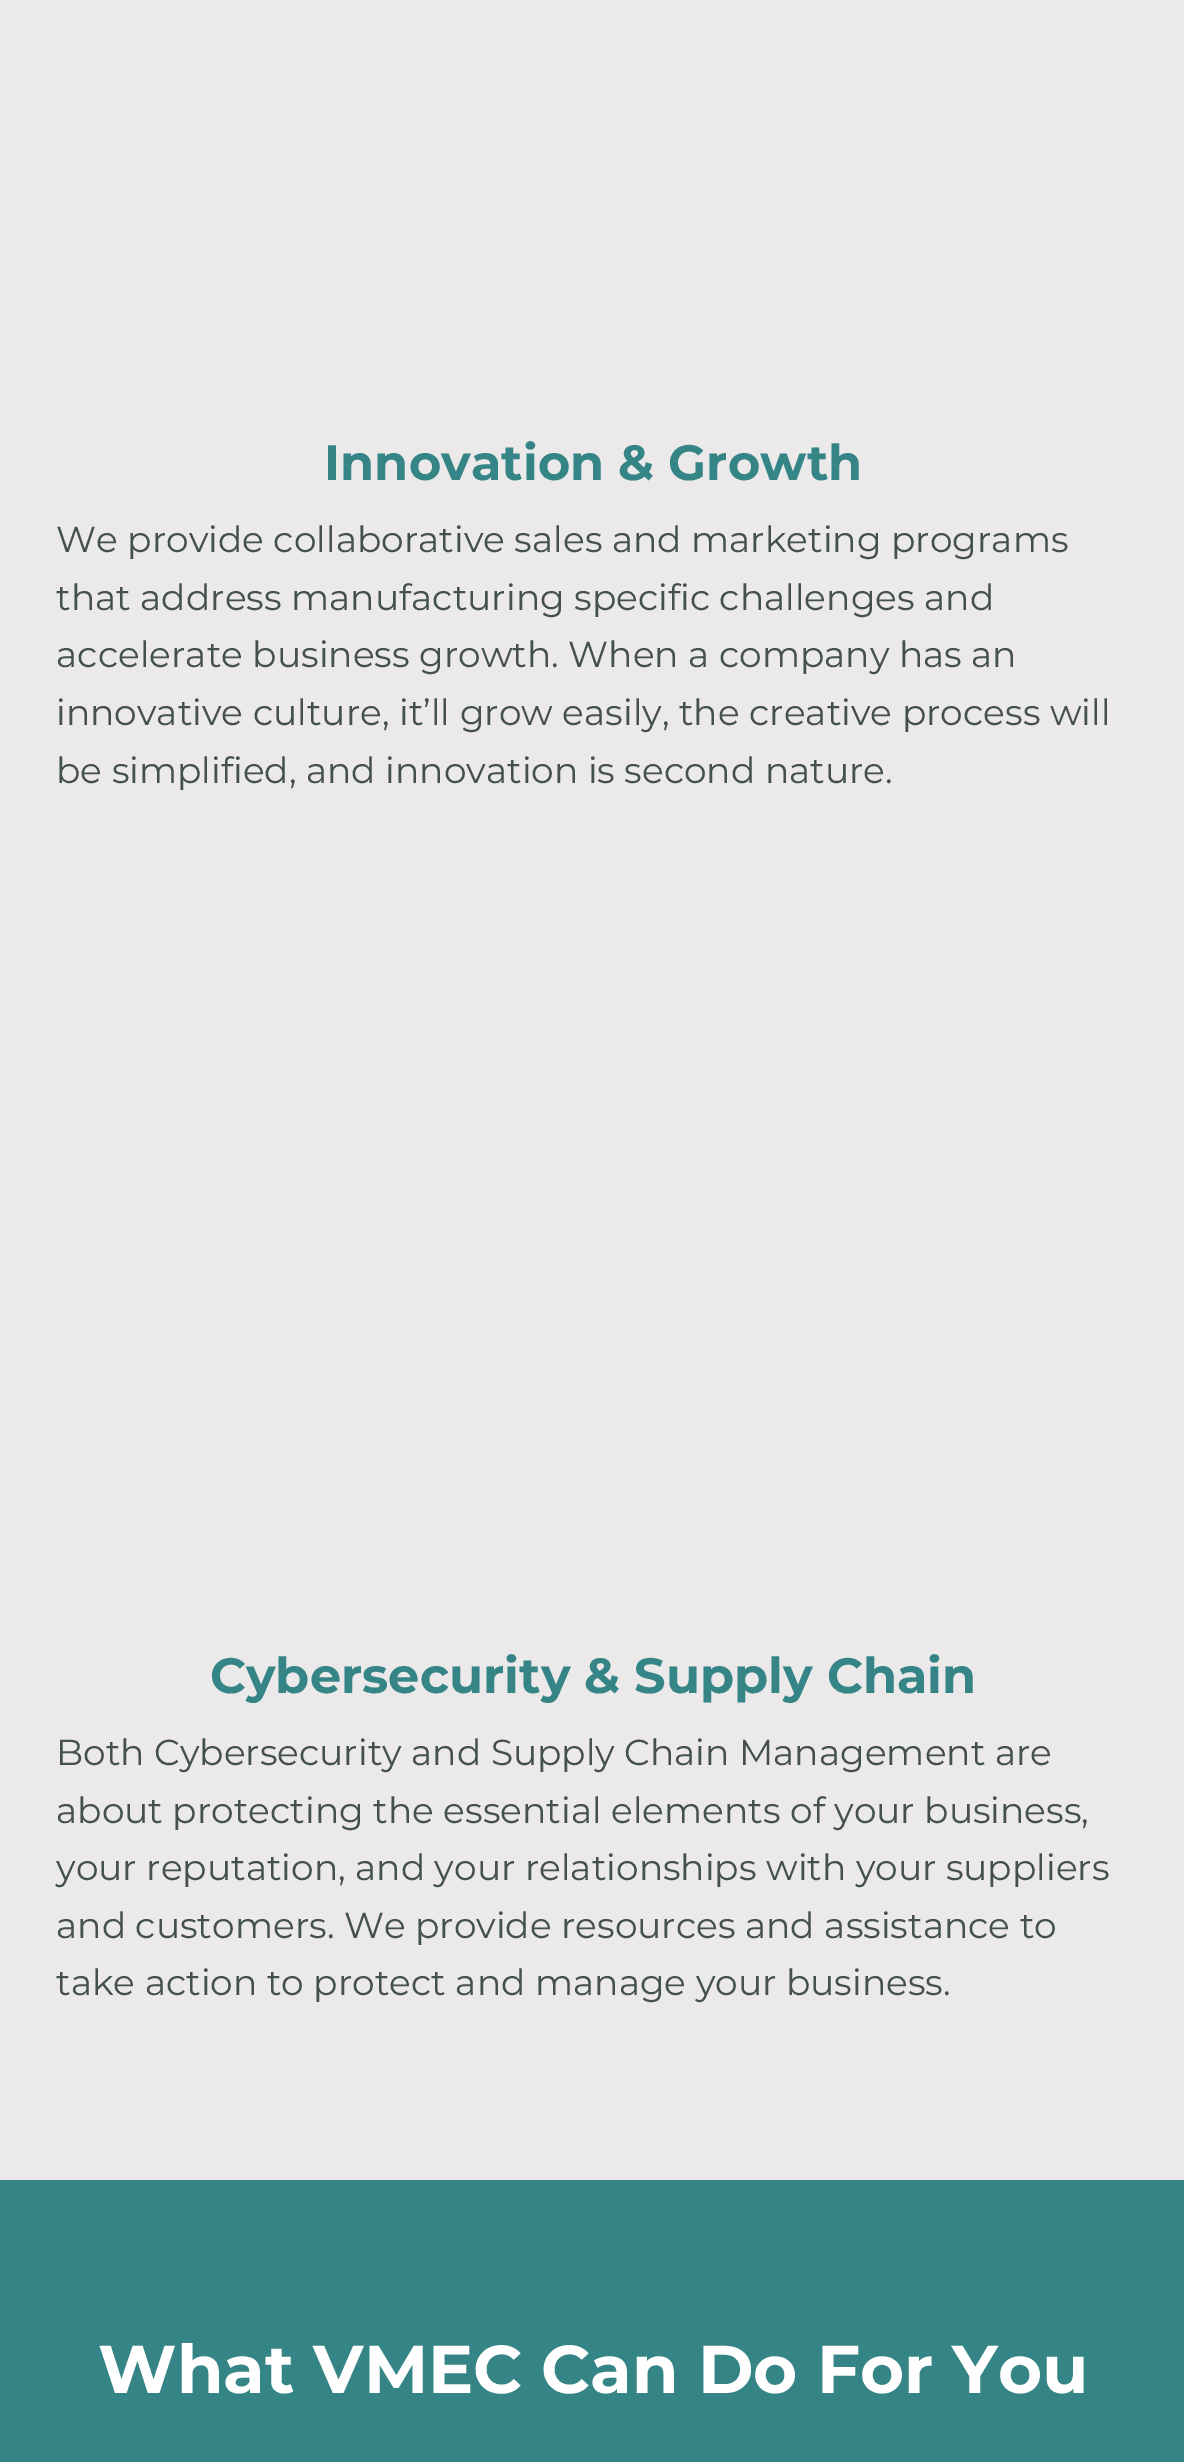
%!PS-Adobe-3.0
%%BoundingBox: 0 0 1184 2462
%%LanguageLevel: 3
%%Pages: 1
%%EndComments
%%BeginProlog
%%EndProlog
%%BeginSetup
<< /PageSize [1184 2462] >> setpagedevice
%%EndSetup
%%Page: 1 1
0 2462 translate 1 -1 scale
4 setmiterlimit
0.922 0.914 0.918 setrgbcolor
0 0 1184 2462 rectfill
0.208 0.522 0.529 setrgbcolor
0 2180 1184 282 rectfill
/Montserrat-Bold [49.5 0 0 -49.5 0 0] selectfont
324 480 moveto (Innovation & Growth) show
/Montserrat-Regular [36 0 0 -36 0 0] selectfont
0.267 0.314 0.294 setrgbcolor
56 552 moveto (We provide collaborative sales and marketing programs) show
56 610 moveto (that address manufacturing specific challenges and) show
56 667 moveto (accelerate business growth. When a company has an) show
56 725 moveto (innovative culture, it’ll grow easily, the creative process will) show
56 783 moveto (be simplified, and innovation is second nature.) show
/Montserrat-Bold [49.5 0 0 -49.5 0 0] selectfont
0.208 0.522 0.529 setrgbcolor
210 1693 moveto (Cybersecurity & Supply Chain) show
/Montserrat-Regular [36 0 0 -36 0 0] selectfont
0.267 0.314 0.294 setrgbcolor
56 1765 moveto (Both Cybersecurity and Supply Chain Management are) show
56 1823 moveto (about protecting the essential elements of your business,) show
56 1880 moveto (your reputation, and your relationships with your suppliers) show
56 1938 moveto (and customers. We provide resources and assistance to) show
56 1995 moveto (take action to protect and manage your business.) show
/Montserrat-Bold [67.5 0 0 -67.5 0 0] selectfont
1 setgray
98 2393 moveto (What VMEC Can Do For You) show
showpage
%%EOF
